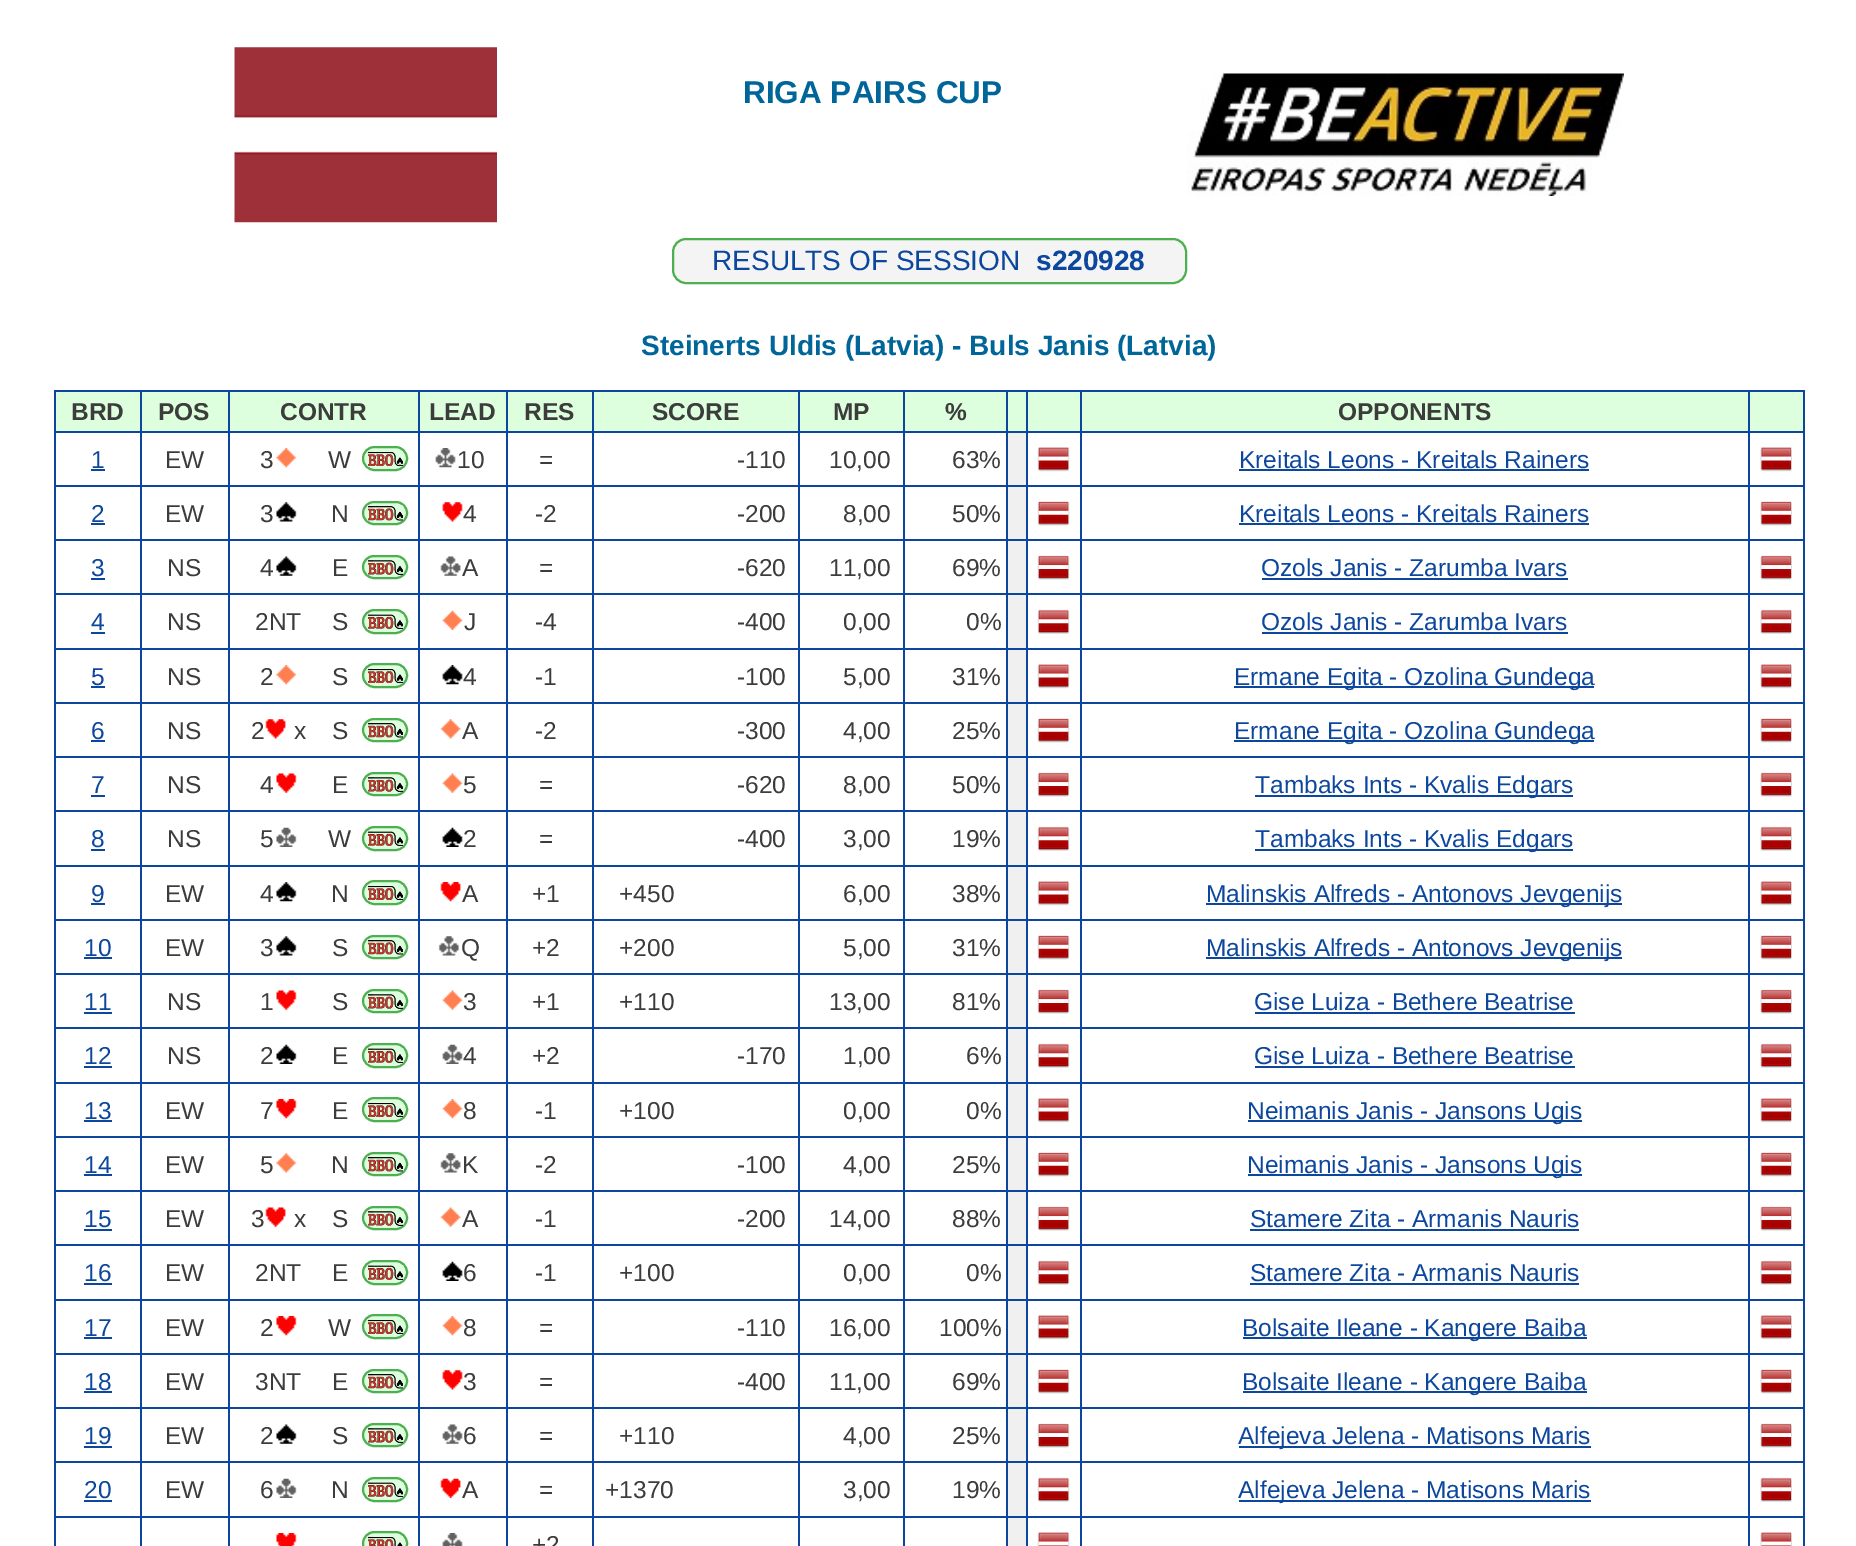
%!PS-Adobe-3.0
%%BoundingBox: 0 0 1856 1546
%%LanguageLevel: 3
%%Pages: 1
%%EndComments
%%BeginProlog
/rrect { 5 dict begin { /r /h /w /y /x } { exch def } forall
  x r add y moveto x w add y 2 copy h add r arct x w add y h add x 1 index r arct
  x y h add x y r arct x y 2 copy exch w add exch r arct closepath end } def
/drawimage { 5 dict begin { /h /w /y /x /name } { exch def } forall
  gsave x y translate w h scale
  w h 8 [w 0 0 h 0 0] name (r) file false 3 colorimage grestore end } def
%%EndProlog
%%BeginSetup
<< /PageSize [1856 1546] >> setpagedevice
%%EndSetup
%%Page: 1 1
0 1546 translate 1 -1 scale
4 setmiterlimit
1 setgray
0 0 1856 1546 rectfill
(images/1.raw) 234 47 263 176 drawimage
(images/2.raw) 1187 73 437 123 drawimage
0.957 setgray
673 239 513 44 13 rrect gsave fill grestore
0.298 0.686 0.314 setrgbcolor
2 setlinewidth
stroke
0.047 0.278 0.616 setrgbcolor
54 390 1750 2 rectfill
1803 390 2 1156 rectfill
54 390 2 1156 rectfill
0.867 1 0.867 setrgbcolor
56 392 84 39 rectfill
142 392 86 39 rectfill
0.047 0.278 0.616 setrgbcolor
1748 431 56 2 rectfill
1748 485 56 2 rectfill
1748 539 56 2 rectfill
1748 593 56 2 rectfill
1748 648 56 2 rectfill
1748 702 56 2 rectfill
1748 756 56 2 rectfill
1748 810 56 2 rectfill
1748 865 56 2 rectfill
1748 919 56 2 rectfill
1748 973 56 2 rectfill
1748 1027 56 2 rectfill
1748 1082 56 2 rectfill
1748 1136 56 2 rectfill
1748 1190 56 2 rectfill
1748 1244 56 2 rectfill
1748 1299 56 2 rectfill
1748 1353 56 2 rectfill
1748 1407 56 2 rectfill
1748 1461 56 2 rectfill
1748 1516 56 2 rectfill
1748 1516 2 30 rectfill
1080 1516 670 2 rectfill
1748 1461 2 56 rectfill
1080 1461 670 2 rectfill
1748 1407 2 56 rectfill
1080 1407 670 2 rectfill
1748 1353 2 56 rectfill
1080 1353 670 2 rectfill
1748 1299 2 56 rectfill
1080 1299 670 2 rectfill
1748 1244 2 56 rectfill
1080 1244 670 2 rectfill
1748 1190 2 56 rectfill
1080 1190 670 2 rectfill
1748 1136 2 56 rectfill
1080 1136 670 2 rectfill
1748 1082 2 56 rectfill
1080 1082 670 2 rectfill
1748 1027 2 56 rectfill
1080 1027 670 2 rectfill
1748 973 2 56 rectfill
1080 973 670 2 rectfill
1748 919 2 56 rectfill
1080 919 670 2 rectfill
1748 865 2 56 rectfill
1080 865 670 2 rectfill
1748 810 2 56 rectfill
1080 810 670 2 rectfill
1748 756 2 56 rectfill
1080 756 670 2 rectfill
1748 702 2 56 rectfill
1080 702 670 2 rectfill
1748 648 2 56 rectfill
1080 648 670 2 rectfill
1748 593 2 56 rectfill
1080 593 670 2 rectfill
1748 539 2 56 rectfill
1080 539 670 2 rectfill
1748 485 2 56 rectfill
1080 485 670 2 rectfill
1748 431 2 56 rectfill
1080 431 670 2 rectfill
1080 1516 2 30 rectfill
1026 1516 56 2 rectfill
1080 1461 2 56 rectfill
1026 1461 56 2 rectfill
1080 1407 2 56 rectfill
1026 1407 56 2 rectfill
1080 1353 2 56 rectfill
1026 1353 56 2 rectfill
1080 1299 2 56 rectfill
1026 1299 56 2 rectfill
1080 1244 2 56 rectfill
1026 1244 56 2 rectfill
1080 1190 2 56 rectfill
1026 1190 56 2 rectfill
1080 1136 2 56 rectfill
1026 1136 56 2 rectfill
1080 1082 2 56 rectfill
1026 1082 56 2 rectfill
1080 1027 2 56 rectfill
1026 1027 56 2 rectfill
1080 973 2 56 rectfill
1026 973 56 2 rectfill
1080 919 2 56 rectfill
1026 919 56 2 rectfill
1080 865 2 56 rectfill
1026 865 56 2 rectfill
1080 810 2 56 rectfill
1026 810 56 2 rectfill
1080 756 2 56 rectfill
1026 756 56 2 rectfill
1080 702 2 56 rectfill
1026 702 56 2 rectfill
1080 648 2 56 rectfill
1026 648 56 2 rectfill
1080 593 2 56 rectfill
1026 593 56 2 rectfill
1080 539 2 56 rectfill
1026 539 56 2 rectfill
1080 485 2 56 rectfill
1026 485 56 2 rectfill
1080 431 2 56 rectfill
1026 431 56 2 rectfill
1026 1516 2 30 rectfill
1006 1516 21 2 rectfill
1026 1461 2 56 rectfill
1006 1461 21 2 rectfill
1026 1407 2 56 rectfill
1006 1407 21 2 rectfill
1026 1353 2 56 rectfill
1006 1353 21 2 rectfill
1026 1299 2 56 rectfill
1006 1299 21 2 rectfill
1026 1244 2 56 rectfill
1006 1244 21 2 rectfill
1026 1190 2 56 rectfill
1006 1190 21 2 rectfill
1026 1136 2 56 rectfill
1006 1136 21 2 rectfill
1026 1082 2 56 rectfill
1006 1082 21 2 rectfill
1026 1027 2 56 rectfill
1006 1027 21 2 rectfill
1026 973 2 56 rectfill
1006 973 21 2 rectfill
1026 919 2 56 rectfill
1006 919 21 2 rectfill
1026 865 2 56 rectfill
1006 865 21 2 rectfill
1026 810 2 56 rectfill
1006 810 21 2 rectfill
1026 756 2 56 rectfill
1006 756 21 2 rectfill
1026 702 2 56 rectfill
1006 702 21 2 rectfill
1026 648 2 56 rectfill
1006 648 21 2 rectfill
1026 593 2 56 rectfill
1006 593 21 2 rectfill
1026 539 2 56 rectfill
1006 539 21 2 rectfill
1026 485 2 56 rectfill
1006 485 21 2 rectfill
1026 431 2 56 rectfill
1006 431 21 2 rectfill
1006 1516 2 30 rectfill
903 1516 105 2 rectfill
1006 1461 2 56 rectfill
903 1461 105 2 rectfill
1006 1407 2 56 rectfill
903 1407 105 2 rectfill
1006 1353 2 56 rectfill
903 1353 105 2 rectfill
1006 1299 2 56 rectfill
903 1299 105 2 rectfill
1006 1244 2 56 rectfill
903 1244 105 2 rectfill
1006 1190 2 56 rectfill
903 1190 105 2 rectfill
1006 1136 2 56 rectfill
903 1136 105 2 rectfill
1006 1082 2 56 rectfill
903 1082 105 2 rectfill
1006 1027 2 56 rectfill
903 1027 105 2 rectfill
1006 973 2 56 rectfill
903 973 105 2 rectfill
1006 919 2 56 rectfill
903 919 105 2 rectfill
1006 865 2 56 rectfill
903 865 105 2 rectfill
1006 810 2 56 rectfill
903 810 105 2 rectfill
1006 756 2 56 rectfill
903 756 105 2 rectfill
1006 702 2 56 rectfill
903 702 105 2 rectfill
1006 648 2 56 rectfill
903 648 105 2 rectfill
1006 593 2 56 rectfill
903 593 105 2 rectfill
1006 539 2 56 rectfill
903 539 105 2 rectfill
1006 485 2 56 rectfill
903 485 105 2 rectfill
1006 431 2 56 rectfill
903 431 105 2 rectfill
903 1516 2 30 rectfill
798 1516 107 2 rectfill
903 1461 2 56 rectfill
798 1461 107 2 rectfill
903 1407 2 56 rectfill
798 1407 107 2 rectfill
903 1353 2 56 rectfill
798 1353 107 2 rectfill
903 1299 2 56 rectfill
798 1299 107 2 rectfill
903 1244 2 56 rectfill
798 1244 107 2 rectfill
903 1190 2 56 rectfill
798 1190 107 2 rectfill
903 1136 2 56 rectfill
798 1136 107 2 rectfill
903 1082 2 56 rectfill
798 1082 107 2 rectfill
903 1027 2 56 rectfill
798 1027 107 2 rectfill
903 973 2 56 rectfill
798 973 107 2 rectfill
903 919 2 56 rectfill
798 919 107 2 rectfill
903 865 2 56 rectfill
798 865 107 2 rectfill
903 810 2 56 rectfill
798 810 107 2 rectfill
903 756 2 56 rectfill
798 756 107 2 rectfill
903 702 2 56 rectfill
798 702 107 2 rectfill
903 648 2 56 rectfill
798 648 107 2 rectfill
903 593 2 56 rectfill
798 593 107 2 rectfill
903 539 2 56 rectfill
798 539 107 2 rectfill
903 485 2 56 rectfill
798 485 107 2 rectfill
903 431 2 56 rectfill
798 431 107 2 rectfill
798 1516 2 30 rectfill
592 1516 208 2 rectfill
798 1461 2 56 rectfill
592 1461 208 2 rectfill
798 1407 2 56 rectfill
592 1407 208 2 rectfill
798 1353 2 56 rectfill
592 1353 208 2 rectfill
798 1299 2 56 rectfill
592 1299 208 2 rectfill
798 1244 2 56 rectfill
592 1244 208 2 rectfill
798 1190 2 56 rectfill
592 1190 208 2 rectfill
798 1136 2 56 rectfill
592 1136 208 2 rectfill
798 1082 2 56 rectfill
592 1082 208 2 rectfill
798 1027 2 56 rectfill
592 1027 208 2 rectfill
798 973 2 56 rectfill
592 973 208 2 rectfill
798 919 2 56 rectfill
592 919 208 2 rectfill
798 865 2 56 rectfill
592 865 208 2 rectfill
798 810 2 56 rectfill
592 810 208 2 rectfill
798 756 2 56 rectfill
592 756 208 2 rectfill
798 702 2 56 rectfill
592 702 208 2 rectfill
798 648 2 56 rectfill
592 648 208 2 rectfill
798 593 2 56 rectfill
592 593 208 2 rectfill
798 539 2 56 rectfill
592 539 208 2 rectfill
798 485 2 56 rectfill
592 485 208 2 rectfill
798 431 2 56 rectfill
592 431 208 2 rectfill
592 1516 2 30 rectfill
506 1516 87 2 rectfill
592 1461 2 56 rectfill
506 1461 87 2 rectfill
592 1407 2 56 rectfill
506 1407 87 2 rectfill
592 1353 2 56 rectfill
506 1353 87 2 rectfill
592 1299 2 56 rectfill
506 1299 87 2 rectfill
592 1244 2 56 rectfill
506 1244 87 2 rectfill
592 1190 2 56 rectfill
506 1190 87 2 rectfill
592 1136 2 56 rectfill
506 1136 87 2 rectfill
592 1082 2 56 rectfill
506 1082 87 2 rectfill
592 1027 2 56 rectfill
506 1027 87 2 rectfill
592 973 2 56 rectfill
506 973 87 2 rectfill
592 919 2 56 rectfill
506 919 87 2 rectfill
592 865 2 56 rectfill
506 865 87 2 rectfill
592 810 2 56 rectfill
506 810 87 2 rectfill
592 756 2 56 rectfill
506 756 87 2 rectfill
592 702 2 56 rectfill
506 702 87 2 rectfill
592 648 2 56 rectfill
506 648 87 2 rectfill
592 593 2 56 rectfill
506 593 87 2 rectfill
592 539 2 56 rectfill
506 539 87 2 rectfill
592 485 2 56 rectfill
506 485 87 2 rectfill
592 431 2 56 rectfill
506 431 87 2 rectfill
506 1516 2 30 rectfill
418 1516 90 2 rectfill
506 1461 2 56 rectfill
418 1461 90 2 rectfill
506 1407 2 56 rectfill
418 1407 90 2 rectfill
506 1353 2 56 rectfill
418 1353 90 2 rectfill
506 1299 2 56 rectfill
418 1299 90 2 rectfill
506 1244 2 56 rectfill
418 1244 90 2 rectfill
506 1190 2 56 rectfill
418 1190 90 2 rectfill
506 1136 2 56 rectfill
418 1136 90 2 rectfill
506 1082 2 56 rectfill
418 1082 90 2 rectfill
506 1027 2 56 rectfill
418 1027 90 2 rectfill
506 973 2 56 rectfill
418 973 90 2 rectfill
506 919 2 56 rectfill
418 919 90 2 rectfill
506 865 2 56 rectfill
418 865 90 2 rectfill
506 810 2 56 rectfill
418 810 90 2 rectfill
506 756 2 56 rectfill
418 756 90 2 rectfill
506 702 2 56 rectfill
418 702 90 2 rectfill
506 648 2 56 rectfill
418 648 90 2 rectfill
506 593 2 56 rectfill
418 593 90 2 rectfill
506 539 2 56 rectfill
418 539 90 2 rectfill
506 485 2 56 rectfill
418 485 90 2 rectfill
506 431 2 56 rectfill
418 431 90 2 rectfill
418 1516 2 30 rectfill
228 1516 192 2 rectfill
418 1461 2 56 rectfill
228 1461 192 2 rectfill
418 1407 2 56 rectfill
228 1407 192 2 rectfill
418 1353 2 56 rectfill
228 1353 192 2 rectfill
418 1299 2 56 rectfill
228 1299 192 2 rectfill
418 1244 2 56 rectfill
228 1244 192 2 rectfill
418 1190 2 56 rectfill
228 1190 192 2 rectfill
418 1136 2 56 rectfill
228 1136 192 2 rectfill
418 1082 2 56 rectfill
228 1082 192 2 rectfill
418 1027 2 56 rectfill
228 1027 192 2 rectfill
418 973 2 56 rectfill
228 973 192 2 rectfill
418 919 2 56 rectfill
228 919 192 2 rectfill
418 865 2 56 rectfill
228 865 192 2 rectfill
418 810 2 56 rectfill
228 810 192 2 rectfill
418 756 2 56 rectfill
228 756 192 2 rectfill
418 702 2 56 rectfill
228 702 192 2 rectfill
418 648 2 56 rectfill
228 648 192 2 rectfill
418 593 2 56 rectfill
228 593 192 2 rectfill
418 539 2 56 rectfill
228 539 192 2 rectfill
418 485 2 56 rectfill
228 485 192 2 rectfill
418 431 2 56 rectfill
228 431 192 2 rectfill
228 1516 2 30 rectfill
140 1516 89 2 rectfill
228 1461 2 56 rectfill
140 1461 89 2 rectfill
228 1407 2 56 rectfill
140 1407 89 2 rectfill
228 1353 2 56 rectfill
140 1353 89 2 rectfill
228 1299 2 56 rectfill
140 1299 89 2 rectfill
228 1244 2 56 rectfill
140 1244 89 2 rectfill
228 1190 2 56 rectfill
140 1190 89 2 rectfill
228 1136 2 56 rectfill
140 1136 89 2 rectfill
228 1082 2 56 rectfill
140 1082 89 2 rectfill
228 1027 2 56 rectfill
140 1027 89 2 rectfill
228 973 2 56 rectfill
140 973 89 2 rectfill
228 919 2 56 rectfill
140 919 89 2 rectfill
228 865 2 56 rectfill
140 865 89 2 rectfill
228 810 2 56 rectfill
140 810 89 2 rectfill
228 756 2 56 rectfill
140 756 89 2 rectfill
228 702 2 56 rectfill
140 702 89 2 rectfill
228 648 2 56 rectfill
140 648 89 2 rectfill
228 593 2 56 rectfill
140 593 89 2 rectfill
228 539 2 56 rectfill
140 539 89 2 rectfill
228 485 2 56 rectfill
140 485 89 2 rectfill
228 431 2 56 rectfill
140 431 89 2 rectfill
140 1516 2 30 rectfill
54 1516 88 2 rectfill
140 1461 2 56 rectfill
54 1461 88 2 rectfill
140 1407 2 56 rectfill
54 1407 88 2 rectfill
140 1353 2 56 rectfill
54 1353 88 2 rectfill
140 1299 2 56 rectfill
54 1299 88 2 rectfill
140 1244 2 56 rectfill
54 1244 88 2 rectfill
140 1190 2 56 rectfill
54 1190 88 2 rectfill
140 1136 2 56 rectfill
54 1136 88 2 rectfill
140 1082 2 56 rectfill
54 1082 88 2 rectfill
140 1027 2 56 rectfill
54 1027 88 2 rectfill
140 973 2 56 rectfill
54 973 88 2 rectfill
140 919 2 56 rectfill
54 919 88 2 rectfill
140 865 2 56 rectfill
54 865 88 2 rectfill
140 810 2 56 rectfill
54 810 88 2 rectfill
140 756 2 56 rectfill
54 756 88 2 rectfill
140 702 2 56 rectfill
54 702 88 2 rectfill
140 648 2 56 rectfill
54 648 88 2 rectfill
140 593 2 56 rectfill
54 593 88 2 rectfill
140 539 2 56 rectfill
54 539 88 2 rectfill
140 485 2 56 rectfill
54 485 88 2 rectfill
140 431 2 56 rectfill
54 431 88 2 rectfill
140 390 2 42 rectfill
0.867 1 0.867 setrgbcolor
230 392 188 39 rectfill
0.047 0.278 0.616 setrgbcolor
228 390 2 42 rectfill
0.867 1 0.867 setrgbcolor
420 392 86 39 rectfill
0.047 0.278 0.616 setrgbcolor
418 390 2 42 rectfill
0.867 1 0.867 setrgbcolor
508 392 84 39 rectfill
0.047 0.278 0.616 setrgbcolor
506 390 2 42 rectfill
0.867 1 0.867 setrgbcolor
594 392 204 39 rectfill
0.047 0.278 0.616 setrgbcolor
592 390 2 42 rectfill
0.867 1 0.867 setrgbcolor
800 392 103 39 rectfill
0.047 0.278 0.616 setrgbcolor
798 390 2 42 rectfill
0.867 1 0.867 setrgbcolor
905 392 101 39 rectfill
0.047 0.278 0.616 setrgbcolor
903 390 2 42 rectfill
0.867 1 0.867 setrgbcolor
1008 392 18 39 rectfill
0.047 0.278 0.616 setrgbcolor
1006 390 2 42 rectfill
0.867 1 0.867 setrgbcolor
1028 392 52 39 rectfill
0.047 0.278 0.616 setrgbcolor
1026 390 2 42 rectfill
0.867 1 0.867 setrgbcolor
1082 392 666 39 rectfill
0.047 0.278 0.616 setrgbcolor
1080 390 2 42 rectfill
0.867 1 0.867 setrgbcolor
1750 392 53 39 rectfill
0.047 0.278 0.616 setrgbcolor
1748 390 2 42 rectfill
91 469 14 2 rectfill
(images/3.raw) 276 448 21 20 drawimage
0.867 1 0.867 setrgbcolor
363 447 44 23 11.5 rrect gsave fill grestore
0.298 0.686 0.314 setrgbcolor
stroke
(images/4.raw) 367 451 36 16 drawimage
(images/5.raw) 435 448 21 20 drawimage
0.941 setgray
1008 433 18 52 rectfill
(images/6.raw) 1037 447 33 25 drawimage
0.047 0.278 0.616 setrgbcolor
1239 469 350 2 rectfill
(images/7.raw) 1760 447 32 25 drawimage
91 523 14 2 rectfill
(images/8.raw) 276 502 21 20 drawimage
0.867 1 0.867 setrgbcolor
363 502 44 22 11 rrect gsave fill grestore
0.298 0.686 0.314 setrgbcolor
stroke
(images/9.raw) 367 505 37 16 drawimage
(images/10.raw) 442 502 21 20 drawimage
0.941 setgray
1008 487 18 52 rectfill
(images/11.raw) 1037 501 33 25 drawimage
0.047 0.278 0.616 setrgbcolor
1239 523 350 2 rectfill
(images/12.raw) 1760 501 32 25 drawimage
91 578 14 2 rectfill
(images/13.raw) 276 556 21 20 drawimage
0.867 1 0.867 setrgbcolor
363 556 44 22 11 rrect gsave fill grestore
0.298 0.686 0.314 setrgbcolor
stroke
(images/14.raw) 367 560 37 15 drawimage
(images/15.raw) 440 556 21 20 drawimage
0.941 setgray
1008 541 18 52 rectfill
(images/16.raw) 1037 555 33 25 drawimage
0.047 0.278 0.616 setrgbcolor
1262 578 306 2 rectfill
(images/17.raw) 1760 555 32 25 drawimage
91 632 14 2 rectfill
0.867 1 0.867 setrgbcolor
363 610 44 23 11.5 rrect gsave fill grestore
0.298 0.686 0.314 setrgbcolor
stroke
(images/18.raw) 367 614 37 16 drawimage
(images/19.raw) 442 610 21 20 drawimage
0.941 setgray
1008 595 18 53 rectfill
(images/20.raw) 1037 609 33 25 drawimage
0.047 0.278 0.616 setrgbcolor
1262 632 306 2 rectfill
(images/21.raw) 1760 609 32 25 drawimage
91 686 14 2 rectfill
(images/3.raw) 276 665 21 20 drawimage
0.867 1 0.867 setrgbcolor
363 664 44 23 11.5 rrect gsave fill grestore
0.298 0.686 0.314 setrgbcolor
stroke
(images/4.raw) 367 668 36 16 drawimage
(images/22.raw) 442 665 21 20 drawimage
0.941 setgray
1008 650 18 52 rectfill
(images/6.raw) 1037 664 33 25 drawimage
0.047 0.278 0.616 setrgbcolor
1234 686 360 2 rectfill
(images/7.raw) 1760 664 32 25 drawimage
91 740 14 2 rectfill
(images/23.raw) 265 719 21 20 drawimage
0.867 1 0.867 setrgbcolor
363 719 44 22 11 rrect gsave fill grestore
0.298 0.686 0.314 setrgbcolor
stroke
(images/9.raw) 367 722 37 16 drawimage
(images/24.raw) 440 719 21 20 drawimage
0.941 setgray
1008 704 18 52 rectfill
(images/11.raw) 1037 718 33 25 drawimage
0.047 0.278 0.616 setrgbcolor
1234 740 360 2 rectfill
(images/12.raw) 1760 718 32 25 drawimage
91 795 14 2 rectfill
(images/25.raw) 276 773 21 20 drawimage
0.867 1 0.867 setrgbcolor
363 773 44 22 11 rrect gsave fill grestore
0.298 0.686 0.314 setrgbcolor
stroke
(images/14.raw) 367 777 37 15 drawimage
(images/26.raw) 442 773 21 20 drawimage
0.941 setgray
1008 758 18 52 rectfill
(images/16.raw) 1037 772 33 25 drawimage
0.047 0.278 0.616 setrgbcolor
1255 795 318 2 rectfill
(images/17.raw) 1760 772 32 25 drawimage
91 849 14 2 rectfill
(images/27.raw) 276 827 21 20 drawimage
0.867 1 0.867 setrgbcolor
363 827 44 23 11.5 rrect gsave fill grestore
0.298 0.686 0.314 setrgbcolor
stroke
(images/18.raw) 367 831 37 16 drawimage
(images/28.raw) 442 827 21 20 drawimage
0.941 setgray
1008 812 18 53 rectfill
(images/20.raw) 1037 826 33 25 drawimage
0.047 0.278 0.616 setrgbcolor
1255 849 318 2 rectfill
(images/21.raw) 1760 826 32 25 drawimage
91 903 14 2 rectfill
(images/29.raw) 276 882 21 20 drawimage
0.867 1 0.867 setrgbcolor
363 881 44 23 11.5 rrect gsave fill grestore
0.298 0.686 0.314 setrgbcolor
stroke
(images/4.raw) 367 885 36 16 drawimage
(images/30.raw) 440 882 21 20 drawimage
0.941 setgray
1008 867 18 52 rectfill
(images/6.raw) 1037 881 33 25 drawimage
0.047 0.278 0.616 setrgbcolor
1206 903 416 2 rectfill
(images/7.raw) 1760 881 32 25 drawimage
84 957 28 2 rectfill
(images/8.raw) 276 936 21 20 drawimage
0.867 1 0.867 setrgbcolor
363 936 44 22 11 rrect gsave fill grestore
0.298 0.686 0.314 setrgbcolor
stroke
(images/9.raw) 367 939 37 16 drawimage
(images/31.raw) 438 936 21 20 drawimage
0.941 setgray
1008 921 18 52 rectfill
(images/11.raw) 1037 935 33 25 drawimage
0.047 0.278 0.616 setrgbcolor
1206 957 416 2 rectfill
(images/12.raw) 1760 935 32 25 drawimage
84 1012 28 2 rectfill
(images/25.raw) 276 990 21 20 drawimage
0.867 1 0.867 setrgbcolor
363 990 44 22 11 rrect gsave fill grestore
0.298 0.686 0.314 setrgbcolor
stroke
(images/14.raw) 367 994 37 15 drawimage
(images/26.raw) 442 990 21 20 drawimage
0.941 setgray
1008 975 18 52 rectfill
(images/16.raw) 1037 989 33 25 drawimage
0.047 0.278 0.616 setrgbcolor
1255 1012 320 2 rectfill
(images/17.raw) 1760 989 32 25 drawimage
84 1066 28 2 rectfill
(images/32.raw) 276 1044 21 20 drawimage
0.867 1 0.867 setrgbcolor
363 1044 44 23 11.5 rrect gsave fill grestore
0.298 0.686 0.314 setrgbcolor
stroke
(images/18.raw) 367 1048 37 16 drawimage
(images/33.raw) 442 1044 21 20 drawimage
0.941 setgray
1008 1029 18 53 rectfill
(images/20.raw) 1037 1043 33 25 drawimage
0.047 0.278 0.616 setrgbcolor
1255 1066 320 2 rectfill
(images/21.raw) 1760 1043 32 25 drawimage
84 1120 28 2 rectfill
(images/34.raw) 276 1099 21 20 drawimage
0.867 1 0.867 setrgbcolor
363 1098 44 23 11.5 rrect gsave fill grestore
0.298 0.686 0.314 setrgbcolor
stroke
(images/4.raw) 367 1102 36 16 drawimage
(images/35.raw) 442 1099 21 20 drawimage
0.941 setgray
1008 1084 18 52 rectfill
(images/6.raw) 1037 1098 33 25 drawimage
0.047 0.278 0.616 setrgbcolor
1248 1120 334 2 rectfill
(images/7.raw) 1760 1098 32 25 drawimage
84 1174 28 2 rectfill
(images/36.raw) 276 1153 21 20 drawimage
0.867 1 0.867 setrgbcolor
363 1153 44 22 11 rrect gsave fill grestore
0.298 0.686 0.314 setrgbcolor
stroke
(images/9.raw) 367 1156 37 16 drawimage
(images/37.raw) 440 1153 21 20 drawimage
0.941 setgray
1008 1138 18 52 rectfill
(images/11.raw) 1037 1152 33 25 drawimage
0.047 0.278 0.616 setrgbcolor
1248 1174 334 2 rectfill
(images/12.raw) 1760 1152 32 25 drawimage
84 1229 28 2 rectfill
(images/38.raw) 265 1207 21 20 drawimage
0.867 1 0.867 setrgbcolor
363 1207 44 22 11 rrect gsave fill grestore
0.298 0.686 0.314 setrgbcolor
stroke
(images/14.raw) 367 1211 37 15 drawimage
(images/39.raw) 440 1207 21 20 drawimage
0.941 setgray
1008 1192 18 52 rectfill
(images/16.raw) 1037 1206 33 25 drawimage
0.047 0.278 0.616 setrgbcolor
1250 1229 329 2 rectfill
(images/17.raw) 1760 1206 32 25 drawimage
84 1283 28 2 rectfill
0.867 1 0.867 setrgbcolor
363 1261 44 23 11.5 rrect gsave fill grestore
0.298 0.686 0.314 setrgbcolor
stroke
(images/18.raw) 367 1265 37 16 drawimage
(images/28.raw) 442 1261 21 20 drawimage
0.941 setgray
1008 1246 18 53 rectfill
(images/20.raw) 1037 1260 33 25 drawimage
0.047 0.278 0.616 setrgbcolor
1250 1283 329 2 rectfill
(images/21.raw) 1760 1260 32 25 drawimage
84 1337 28 2 rectfill
(images/34.raw) 276 1316 21 20 drawimage
0.867 1 0.867 setrgbcolor
363 1315 44 23 11.5 rrect gsave fill grestore
0.298 0.686 0.314 setrgbcolor
stroke
(images/4.raw) 367 1319 36 16 drawimage
(images/35.raw) 442 1316 21 20 drawimage
0.941 setgray
1008 1301 18 52 rectfill
(images/6.raw) 1037 1315 33 25 drawimage
0.047 0.278 0.616 setrgbcolor
1243 1337 344 2 rectfill
(images/7.raw) 1760 1315 32 25 drawimage
84 1391 28 2 rectfill
0.867 1 0.867 setrgbcolor
363 1370 44 22 11 rrect gsave fill grestore
0.298 0.686 0.314 setrgbcolor
stroke
(images/9.raw) 367 1373 37 16 drawimage
(images/10.raw) 442 1370 21 20 drawimage
0.941 setgray
1008 1355 18 52 rectfill
(images/11.raw) 1037 1369 33 25 drawimage
0.047 0.278 0.616 setrgbcolor
1243 1391 344 2 rectfill
(images/12.raw) 1760 1369 32 25 drawimage
84 1446 28 2 rectfill
(images/13.raw) 276 1424 21 20 drawimage
0.867 1 0.867 setrgbcolor
363 1424 44 22 11 rrect gsave fill grestore
0.298 0.686 0.314 setrgbcolor
stroke
(images/14.raw) 367 1428 37 15 drawimage
(images/40.raw) 442 1424 21 20 drawimage
0.941 setgray
1008 1409 18 52 rectfill
(images/16.raw) 1037 1423 33 25 drawimage
0.047 0.278 0.616 setrgbcolor
1239 1446 352 2 rectfill
(images/17.raw) 1760 1423 32 25 drawimage
84 1500 28 2 rectfill
(images/27.raw) 276 1478 21 20 drawimage
0.867 1 0.867 setrgbcolor
363 1478 44 23 11.5 rrect gsave fill grestore
0.298 0.686 0.314 setrgbcolor
stroke
(images/18.raw) 367 1482 37 16 drawimage
(images/41.raw) 440 1478 21 20 drawimage
0.941 setgray
1008 1463 18 53 rectfill
(images/20.raw) 1037 1477 33 25 drawimage
0.047 0.278 0.616 setrgbcolor
1239 1500 352 2 rectfill
(images/21.raw) 1760 1477 32 25 drawimage
(images/42.raw) 276 1533 21 13 drawimage
0.867 1 0.867 setrgbcolor
363 1532 44 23 11.5 rrect gsave fill grestore
0.298 0.686 0.314 setrgbcolor
stroke
(images/43.raw) 367 1536 36 10 drawimage
(images/44.raw) 442 1533 21 13 drawimage
0.941 setgray
1008 1518 18 28 rectfill
(images/45.raw) 1037 1532 33 14 drawimage
(images/46.raw) 1760 1532 32 14 drawimage
/LiberationSans-Bold [31.5 0 0 -31.5 0 0] selectfont
0 0.4 0.6 setrgbcolor
743 103 moveto (RIGA PAIRS CUP) show
/LiberationSans-Regular [28 0 0 -28 0 0] selectfont
0.047 0.278 0.616 setrgbcolor
712 270 moveto (RESULTS OF SESSION) show
/LiberationSans-Bold [28 0 0 -28 0 0] selectfont
1036 270 moveto (s220928) show
0 0.4 0.6 setrgbcolor
641 355 moveto (Steinerts Uldis \(Latvia\) - Buls Janis \(Latvia\)) show
/LiberationSans-Bold [24.5 0 0 -24.5 0 0] selectfont
0.235 setgray
71 420 moveto (BRD) show
158 420 moveto (POS) show
280 420 moveto (CONTR) show
429 420 moveto (LEAD) show
524 420 moveto (RES) show
652 420 moveto (SCORE) show
833 420 moveto (MP) show
945 420 moveto (%) show
1338 420 moveto (OPPONENTS) show
/LiberationSans-Regular [24.5 0 0 -24.5 0 0] selectfont
0.047 0.278 0.616 setrgbcolor
91 468 moveto (1) show
0.235 setgray
165 468 moveto (EW) show
260 468 moveto (3) show
328 468 moveto (W) show
457 468 moveto (10) show
539 468 moveto (=) show
737 468 moveto (-110) show
829 468 moveto (10,00) show
952 468 moveto (63%) show
0.047 0.278 0.616 setrgbcolor
1239 468 moveto (Kreitals Leons - Kreitals Rainers) show
91 522 moveto (2) show
0.235 setgray
165 522 moveto (EW) show
260 522 moveto (3) show
331 522 moveto (N) show
463 522 moveto (4) show
535 522 moveto (-2) show
737 522 moveto (-200) show
843 522 moveto (8,00) show
952 522 moveto (50%) show
0.047 0.278 0.616 setrgbcolor
1239 522 moveto (Kreitals Leons - Kreitals Rainers) show
91 576 moveto (3) show
0.235 setgray
167 576 moveto (NS) show
260 576 moveto (4) show
332 576 moveto (E) show
462 576 moveto (A) show
539 576 moveto (=) show
737 576 moveto (-620) show
829 576 moveto (11,00) show
952 576 moveto (69%) show
0.047 0.278 0.616 setrgbcolor
1261 576 moveto (Ozols Janis - Zarumba Ivars) show
91 630 moveto (4) show
0.235 setgray
167 630 moveto (NS) show
255 630 moveto (2NT) show
332 630 moveto (S) show
464 630 moveto (J) show
535 630 moveto (-4) show
737 630 moveto (-400) show
843 630 moveto (0,00) show
966 630 moveto (0%) show
0.047 0.278 0.616 setrgbcolor
1261 630 moveto (Ozols Janis - Zarumba Ivars) show
91 685 moveto (5) show
0.235 setgray
167 685 moveto (NS) show
260 685 moveto (2) show
332 685 moveto (S) show
463 685 moveto (4) show
535 685 moveto (-1) show
737 685 moveto (-100) show
843 685 moveto (5,00) show
952 685 moveto (31%) show
0.047 0.278 0.616 setrgbcolor
1234 685 moveto (Ermane Egita - Ozolina Gundega) show
91 739 moveto (6) show
0.235 setgray
167 739 moveto (NS) show
251 739 moveto (2) show
294 739 moveto (x) show
332 739 moveto (S) show
462 739 moveto (A) show
535 739 moveto (-2) show
737 739 moveto (-300) show
843 739 moveto (4,00) show
952 739 moveto (25%) show
0.047 0.278 0.616 setrgbcolor
1234 739 moveto (Ermane Egita - Ozolina Gundega) show
91 793 moveto (7) show
0.235 setgray
167 793 moveto (NS) show
260 793 moveto (4) show
332 793 moveto (E) show
463 793 moveto (5) show
539 793 moveto (=) show
737 793 moveto (-620) show
843 793 moveto (8,00) show
952 793 moveto (50%) show
0.047 0.278 0.616 setrgbcolor
1255 793 moveto (Tambaks Ints - Kvalis Edgars) show
91 847 moveto (8) show
0.235 setgray
167 847 moveto (NS) show
260 847 moveto (5) show
328 847 moveto (W) show
463 847 moveto (2) show
539 847 moveto (=) show
737 847 moveto (-400) show
843 847 moveto (3,00) show
952 847 moveto (19%) show
0.047 0.278 0.616 setrgbcolor
1255 847 moveto (Tambaks Ints - Kvalis Edgars) show
91 902 moveto (9) show
0.235 setgray
165 902 moveto (EW) show
260 902 moveto (4) show
331 902 moveto (N) show
462 902 moveto (A) show
532 902 moveto (+1) show
619 902 moveto (+450) show
843 902 moveto (6,00) show
952 902 moveto (38%) show
0.047 0.278 0.616 setrgbcolor
1206 902 moveto (Malinskis Alfreds - Antonovs Jevgenijs) show
84 956 moveto (10) show
0.235 setgray
165 956 moveto (EW) show
260 956 moveto (3) show
332 956 moveto (S) show
461 956 moveto (Q) show
532 956 moveto (+2) show
619 956 moveto (+200) show
843 956 moveto (5,00) show
952 956 moveto (31%) show
0.047 0.278 0.616 setrgbcolor
1206 956 moveto (Malinskis Alfreds - Antonovs Jevgenijs) show
84 1010 moveto (11) show
0.235 setgray
167 1010 moveto (NS) show
260 1010 moveto (1) show
332 1010 moveto (S) show
463 1010 moveto (3) show
532 1010 moveto (+1) show
619 1010 moveto (+110) show
829 1010 moveto (13,00) show
952 1010 moveto (81%) show
0.047 0.278 0.616 setrgbcolor
1254 1010 moveto (Gise Luiza - Bethere Beatrise) show
84 1064 moveto (12) show
0.235 setgray
167 1064 moveto (NS) show
260 1064 moveto (2) show
332 1064 moveto (E) show
463 1064 moveto (4) show
532 1064 moveto (+2) show
737 1064 moveto (-170) show
843 1064 moveto (1,00) show
966 1064 moveto (6%) show
0.047 0.278 0.616 setrgbcolor
1254 1064 moveto (Gise Luiza - Bethere Beatrise) show
84 1119 moveto (13) show
0.235 setgray
165 1119 moveto (EW) show
260 1119 moveto (7) show
332 1119 moveto (E) show
463 1119 moveto (8) show
535 1119 moveto (-1) show
619 1119 moveto (+100) show
843 1119 moveto (0,00) show
966 1119 moveto (0%) show
0.047 0.278 0.616 setrgbcolor
1247 1119 moveto (Neimanis Janis - Jansons Ugis) show
84 1173 moveto (14) show
0.235 setgray
165 1173 moveto (EW) show
260 1173 moveto (5) show
331 1173 moveto (N) show
462 1173 moveto (K) show
535 1173 moveto (-2) show
737 1173 moveto (-100) show
843 1173 moveto (4,00) show
952 1173 moveto (25%) show
0.047 0.278 0.616 setrgbcolor
1247 1173 moveto (Neimanis Janis - Jansons Ugis) show
84 1227 moveto (15) show
0.235 setgray
165 1227 moveto (EW) show
251 1227 moveto (3) show
294 1227 moveto (x) show
332 1227 moveto (S) show
462 1227 moveto (A) show
535 1227 moveto (-1) show
737 1227 moveto (-200) show
829 1227 moveto (14,00) show
952 1227 moveto (88%) show
0.047 0.278 0.616 setrgbcolor
1250 1227 moveto (Stamere Zita - Armanis Nauris) show
84 1281 moveto (16) show
0.235 setgray
165 1281 moveto (EW) show
255 1281 moveto (2NT) show
332 1281 moveto (E) show
463 1281 moveto (6) show
535 1281 moveto (-1) show
619 1281 moveto (+100) show
843 1281 moveto (0,00) show
966 1281 moveto (0%) show
0.047 0.278 0.616 setrgbcolor
1250 1281 moveto (Stamere Zita - Armanis Nauris) show
84 1336 moveto (17) show
0.235 setgray
165 1336 moveto (EW) show
260 1336 moveto (2) show
328 1336 moveto (W) show
463 1336 moveto (8) show
539 1336 moveto (=) show
737 1336 moveto (-110) show
829 1336 moveto (16,00) show
939 1336 moveto (100%) show
0.047 0.278 0.616 setrgbcolor
1242 1336 moveto (Bolsaite Ileane - Kangere Baiba) show
84 1390 moveto (18) show
0.235 setgray
165 1390 moveto (EW) show
255 1390 moveto (3NT) show
332 1390 moveto (E) show
463 1390 moveto (3) show
539 1390 moveto (=) show
737 1390 moveto (-400) show
829 1390 moveto (11,00) show
952 1390 moveto (69%) show
0.047 0.278 0.616 setrgbcolor
1242 1390 moveto (Bolsaite Ileane - Kangere Baiba) show
84 1444 moveto (19) show
0.235 setgray
165 1444 moveto (EW) show
260 1444 moveto (2) show
332 1444 moveto (S) show
463 1444 moveto (6) show
539 1444 moveto (=) show
619 1444 moveto (+110) show
843 1444 moveto (4,00) show
952 1444 moveto (25%) show
0.047 0.278 0.616 setrgbcolor
1238 1444 moveto (Alfejeva Jelena - Matisons Maris) show
84 1498 moveto (20) show
0.235 setgray
165 1498 moveto (EW) show
260 1498 moveto (6) show
331 1498 moveto (N) show
462 1498 moveto (A) show
539 1498 moveto (=) show
605 1498 moveto (+1370) show
843 1498 moveto (3,00) show
952 1498 moveto (19%) show
0.047 0.278 0.616 setrgbcolor
1238 1498 moveto (Alfejeva Jelena - Matisons Maris) show
0.235 setgray
532 1553 moveto (+2) show
showpage
%%EOF
